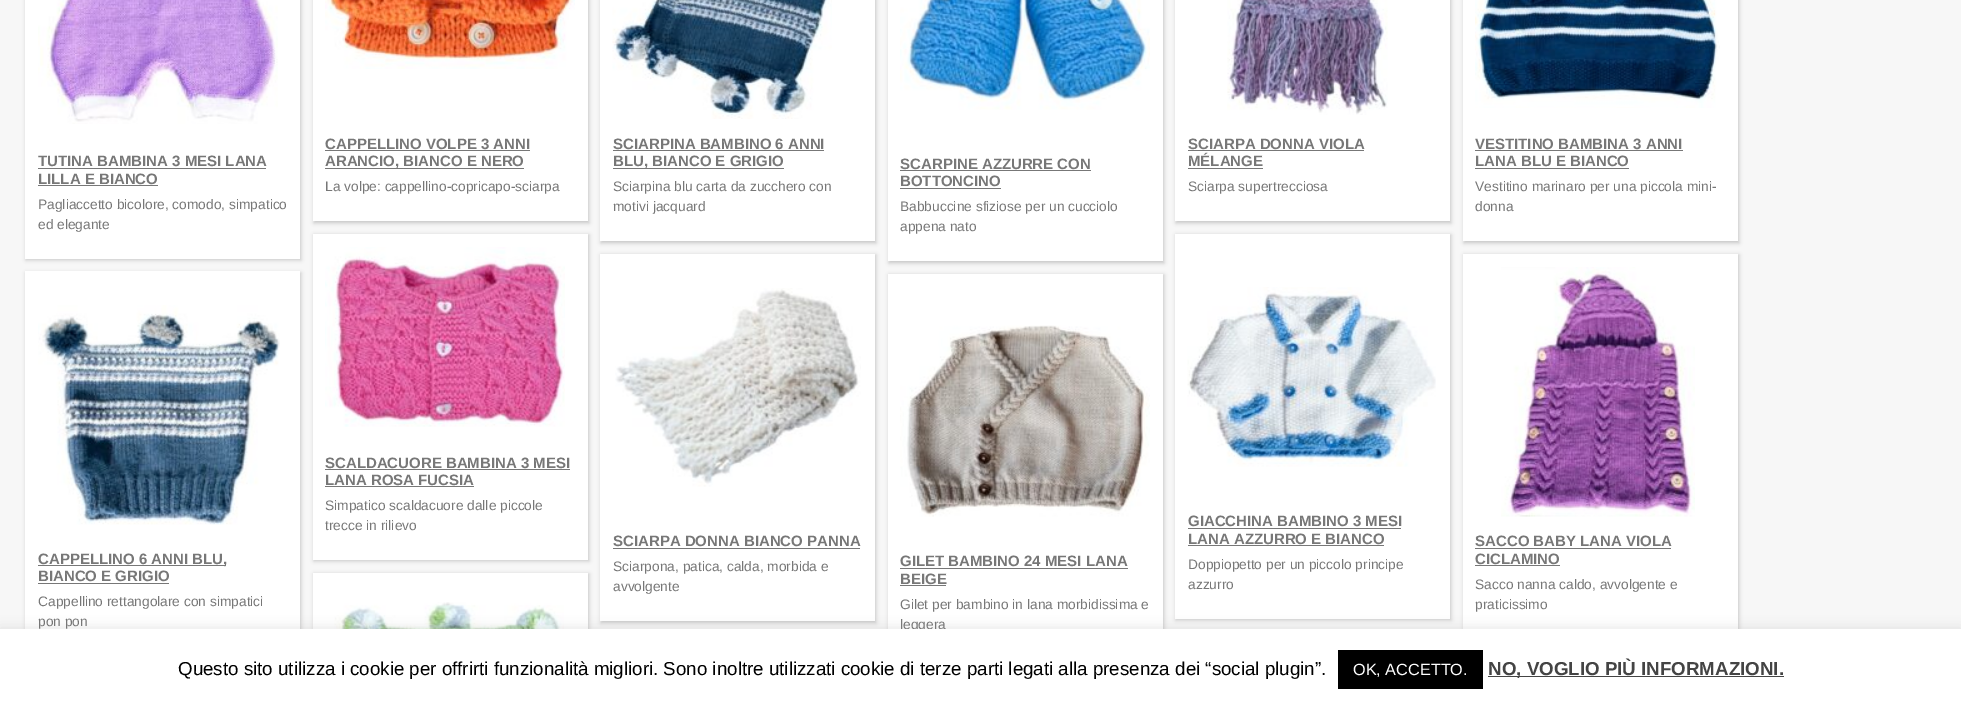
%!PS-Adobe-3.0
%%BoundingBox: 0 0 1961 703
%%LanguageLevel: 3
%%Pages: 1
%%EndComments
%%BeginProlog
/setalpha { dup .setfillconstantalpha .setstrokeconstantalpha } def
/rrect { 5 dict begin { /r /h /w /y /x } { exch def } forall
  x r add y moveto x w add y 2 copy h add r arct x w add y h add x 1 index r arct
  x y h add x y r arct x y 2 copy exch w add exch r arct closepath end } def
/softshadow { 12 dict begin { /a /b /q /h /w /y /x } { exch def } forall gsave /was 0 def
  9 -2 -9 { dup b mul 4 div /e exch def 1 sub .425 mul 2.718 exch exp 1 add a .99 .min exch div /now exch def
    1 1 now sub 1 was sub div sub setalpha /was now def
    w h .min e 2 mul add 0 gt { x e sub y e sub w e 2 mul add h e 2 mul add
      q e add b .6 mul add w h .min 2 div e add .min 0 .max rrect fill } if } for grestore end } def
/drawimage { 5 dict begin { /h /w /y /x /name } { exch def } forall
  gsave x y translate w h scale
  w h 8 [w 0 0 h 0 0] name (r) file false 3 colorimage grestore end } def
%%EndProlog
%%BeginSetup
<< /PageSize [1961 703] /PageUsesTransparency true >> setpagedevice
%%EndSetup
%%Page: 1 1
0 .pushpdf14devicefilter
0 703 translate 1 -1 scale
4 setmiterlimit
0.969 setgray
0 0 1961 703 rectfill
0 setgray
26 -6 275 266 0 2 0.2 softshadow
1 setgray
25 0 275 259 rectfill
(images/1.raw) 38 0 240 124 drawimage
0.467 setgray
38 168 228 1 rectfill
38 185 120 1 rectfill
0 setgray
314 -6 275 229 0 2 0.2 softshadow
1 setgray
313 0 275 221 rectfill
(images/2.raw) 325 0 250 69 drawimage
0.467 setgray
325 150 205 1 rectfill
325 168 199 1 rectfill
0 setgray
601 -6 275 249 0 2 0.2 softshadow
1 setgray
600 0 275 241 rectfill
(images/3.raw) 612 0 220 119 drawimage
0.467 setgray
613 150 211 1 rectfill
613 168 171 1 rectfill
0 setgray
889 -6 275 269 0 2 0.2 softshadow
1 setgray
888 0 275 261 rectfill
(images/4.raw) 900 0 250 110 drawimage
0.467 setgray
900 170 191 1 rectfill
900 188 101 1 rectfill
0 setgray
1176 -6 275 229 0 2 0.2 softshadow
1 setgray
1175 0 275 221 rectfill
(images/5.raw) 1227 0 161 115 drawimage
0.467 setgray
1188 150 176 1 rectfill
1188 168 75 1 rectfill
0 setgray
1464 -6 275 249 0 2 0.2 softshadow
1 setgray
1463 0 275 241 rectfill
(images/6.raw) 1475 0 245 108 drawimage
0.467 setgray
1475 150 208 1 rectfill
1475 168 154 1 rectfill
0 setgray
314 235 275 326 0 2 0.2 softshadow
1 setgray
313 234 275 326 rectfill
(images/7.raw) 325 247 240 180 drawimage
0.467 setgray
325 469 245 1 rectfill
325 486 149 1 rectfill
0 setgray
26 273 275 385 0 2 0.2 softshadow
1 setgray
25 271 275 358 rectfill
(images/8.raw) 38 305 242 220 drawimage
0.467 setgray
38 565 188 1 rectfill
38 583 131 1 rectfill
0 setgray
314 574 275 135 0 2 0.2 softshadow
1 setgray
313 573 275 56 rectfill
(images/9.raw) 334 602 230 27 drawimage
0 setgray
601 255 275 368 0 2 0.2 softshadow
1 setgray
600 254 275 367 rectfill
(images/10.raw) 615 288 246 199 drawimage
0.467 setgray
613 548 247 1 rectfill
0 setgray
889 275 275 385 0 2 0.2 softshadow
1 setgray
888 274 275 355 rectfill
(images/11.raw) 900 325 250 192 drawimage
0.467 setgray
900 568 228 1 rectfill
900 585 46 1 rectfill
0 setgray
1176 235 275 385 0 2 0.2 softshadow
1 setgray
1175 234 275 385 rectfill
(images/12.raw) 1187 287 249 180 drawimage
0.467 setgray
1188 528 213 1 rectfill
1188 545 196 1 rectfill
0 setgray
1464 255 275 385 0 2 0.2 softshadow
1 setgray
1463 254 275 375 rectfill
(images/13.raw) 1501 267 194 250 drawimage
0.467 setgray
1475 548 196 1 rectfill
1475 565 85 1 rectfill
0.675 0.671 0.671 setrgbcolor
0 628 1961 75 0 6 0.3 softshadow
/LiberationSans-Bold [15 0 0 -15 0 0] selectfont
0.467 setgray
38 166 moveto (TUTINA BAMBINA 3 MESI LANA) show
38 184 moveto (LILLA E BIANCO) show
/LiberationSans-Regular [13.75 0 0 -13.75 0 0] selectfont
38 209 moveto (Pagliaccetto bicolore, comodo, simpatico) show
38 229 moveto (ed elegante) show
/LiberationSans-Bold [15 0 0 -15 0 0] selectfont
325 149 moveto (CAPPELLINO VOLPE 3 ANNI) show
325 166 moveto (ARANCIO, BIANCO E NERO) show
/LiberationSans-Regular [13.75 0 0 -13.75 0 0] selectfont
325 191 moveto (La volpe: cappellino-copricapo-sciarpa) show
/LiberationSans-Bold [15 0 0 -15 0 0] selectfont
613 149 moveto (SCIARPINA BAMBINO 6 ANNI) show
613 166 moveto (BLU, BIANCO E GRIGIO) show
/LiberationSans-Regular [13.75 0 0 -13.75 0 0] selectfont
613 191 moveto (Sciarpina blu carta da zucchero con) show
613 211 moveto (motivi jacquard) show
/LiberationSans-Bold [15 0 0 -15 0 0] selectfont
900 169 moveto (SCARPINE AZZURRE CON) show
900 186 moveto (BOTTONCINO) show
/LiberationSans-Regular [13.75 0 0 -13.75 0 0] selectfont
900 211 moveto (Babbuccine sfiziose per un cucciolo) show
900 231 moveto (appena nato) show
/LiberationSans-Bold [15 0 0 -15 0 0] selectfont
1188 149 moveto (SCIARPA DONNA VIOLA) show
1188 166 moveto (MÉLANGE) show
/LiberationSans-Regular [13.75 0 0 -13.75 0 0] selectfont
1188 191 moveto (Sciarpa supertrecciosa) show
/LiberationSans-Bold [15 0 0 -15 0 0] selectfont
1475 149 moveto (VESTITINO BAMBINA 3 ANNI) show
1475 166 moveto (LANA BLU E BIANCO) show
/LiberationSans-Regular [13.75 0 0 -13.75 0 0] selectfont
1475 191 moveto (Vestitino marinaro per una piccola mini-) show
1475 211 moveto (donna) show
/LiberationSans-Bold [15 0 0 -15 0 0] selectfont
325 468 moveto (SCALDACUORE BAMBINA 3 MESI) show
325 485 moveto (LANA ROSA FUCSIA) show
/LiberationSans-Regular [13.75 0 0 -13.75 0 0] selectfont
325 510 moveto (Simpatico scaldacuore dalle piccole) show
325 530 moveto (trecce in rilievo) show
/LiberationSans-Bold [15 0 0 -15 0 0] selectfont
38 564 moveto (CAPPELLINO 6 ANNI BLU,) show
38 581 moveto (BIANCO E GRIGIO) show
/LiberationSans-Regular [13.75 0 0 -13.75 0 0] selectfont
38 606 moveto (Cappellino rettangolare con simpatici) show
38 626 moveto (pon pon) show
/LiberationSans-Bold [15 0 0 -15 0 0] selectfont
613 546 moveto (SCIARPA DONNA BIANCO PANNA) show
/LiberationSans-Regular [13.75 0 0 -13.75 0 0] selectfont
613 571 moveto (Sciarpona, patica, calda, morbida e) show
613 591 moveto (avvolgente) show
/LiberationSans-Bold [15 0 0 -15 0 0] selectfont
900 566 moveto (GILET BAMBINO 24 MESI LANA) show
900 584 moveto (BEIGE) show
/LiberationSans-Regular [13.75 0 0 -13.75 0 0] selectfont
900 609 moveto (Gilet per bambino in lana morbidissima e) show
900 629 moveto (leggera) show
/LiberationSans-Bold [15 0 0 -15 0 0] selectfont
1188 526 moveto (GIACCHINA BAMBINO 3 MESI) show
1188 544 moveto (LANA AZZURRO E BIANCO) show
/LiberationSans-Regular [13.75 0 0 -13.75 0 0] selectfont
1188 569 moveto (Doppiopetto per un piccolo principe) show
1188 589 moveto (azzurro) show
/LiberationSans-Bold [15 0 0 -15 0 0] selectfont
1475 546 moveto (SACCO BABY LANA VIOLA) show
1475 564 moveto (CICLAMINO) show
/LiberationSans-Regular [13.75 0 0 -13.75 0 0] selectfont
1475 589 moveto (Sacco nanna caldo, avvolgente e) show
1475 609 moveto (praticissimo) show
1 setgray
0 629 1961 74 rectfill
/LiberationSans-Regular [18.75 0 0 -18.75 0 0] selectfont
0 setgray
178 675 moveto (Questo sito utilizza i cookie per offrirti funzionalità migliori. Sono inoltre utilizzati cookie di terze parti legati alla presenza dei “social plugin”.) show
1338 650 145 39 rectfill
/LiberationSans-Regular [16.25 0 0 -16.25 0 0] selectfont
1 setgray
1353 675 moveto (OK, ACCETTO.) show
0.267 setgray
1488 676 296 1 rectfill
/LiberationSans-Bold [18.75 0 0 -18.75 0 0] selectfont
1488 675 moveto (NO, VOGLIO PIÙ INFORMAZIONI.) show
.poppdf14devicefilter showpage
%%EOF
